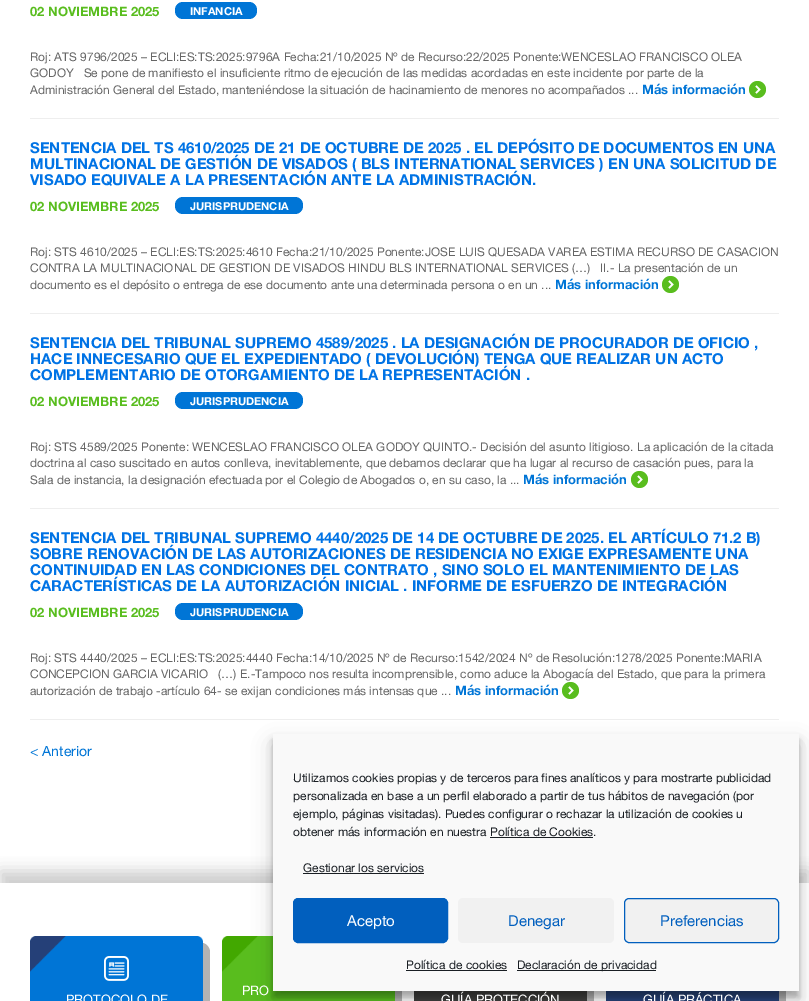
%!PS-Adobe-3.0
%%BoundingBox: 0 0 809 1001
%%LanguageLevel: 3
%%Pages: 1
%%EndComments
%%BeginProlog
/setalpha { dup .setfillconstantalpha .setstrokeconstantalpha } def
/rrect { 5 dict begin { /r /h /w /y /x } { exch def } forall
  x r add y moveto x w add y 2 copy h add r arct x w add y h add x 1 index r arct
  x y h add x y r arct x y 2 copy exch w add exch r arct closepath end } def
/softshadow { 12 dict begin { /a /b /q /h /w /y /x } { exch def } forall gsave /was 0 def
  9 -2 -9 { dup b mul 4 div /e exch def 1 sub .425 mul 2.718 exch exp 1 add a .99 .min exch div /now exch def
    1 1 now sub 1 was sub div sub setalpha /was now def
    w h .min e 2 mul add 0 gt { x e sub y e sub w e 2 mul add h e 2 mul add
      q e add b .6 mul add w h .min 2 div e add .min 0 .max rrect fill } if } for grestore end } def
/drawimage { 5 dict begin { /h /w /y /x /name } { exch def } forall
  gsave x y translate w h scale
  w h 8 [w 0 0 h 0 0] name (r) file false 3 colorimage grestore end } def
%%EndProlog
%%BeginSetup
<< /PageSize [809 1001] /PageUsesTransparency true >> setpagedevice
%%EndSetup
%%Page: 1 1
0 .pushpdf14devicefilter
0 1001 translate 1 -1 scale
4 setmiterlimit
1 setgray
0 0 809 1001 rectfill
0 0.459 0.839 setrgbcolor
175 2 82 17 8 rrect fill
0.349 0.741 0.118 setrgbcolor
newpath 757.5 89.5 8.5 0 360 arc closepath fill
1 setgray
1.5 setlinewidth
newpath 756 86 moveto 759.5 89.5 lineto 756 93 lineto stroke
0.933 setgray
30 118 749 1 rectfill
0 0.459 0.839 setrgbcolor
175 197 128 17 8 rrect fill
0.349 0.741 0.118 setrgbcolor
newpath 670.5 284.5 8.5 0 360 arc closepath fill
1 setgray
newpath 669 281 moveto 672.5 284.5 lineto 669 288 lineto stroke
0.933 setgray
30 313 749 1 rectfill
0 0.459 0.839 setrgbcolor
175 392 128 17 8 rrect fill
0.349 0.741 0.118 setrgbcolor
newpath 639.5 479.5 8.5 0 360 arc closepath fill
1 setgray
newpath 638 476 moveto 641.5 479.5 lineto 638 483 lineto stroke
0.933 setgray
30 508 749 1 rectfill
0 0.459 0.839 setrgbcolor
175 603 128 17 8 rrect fill
0.349 0.741 0.118 setrgbcolor
newpath 570.5 690.5 8.5 0 360 arc closepath fill
1 setgray
newpath 569 687 moveto 572.5 690.5 lineto 569 694 lineto stroke
0.933 setgray
30 719 749 1 rectfill
gsave
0 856 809 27 rectclip
0.8 setgray
0 871 809 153 0 7.5 1 softshadow
grestore
0.702 setgray
newpath 37 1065 moveto 38 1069 42 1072 46 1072 curveto 201 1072 lineto 206 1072 210 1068 210 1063 curveto 210 952 lineto 210 948 207 944 203 943 curveto 203 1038 lineto 203 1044 207 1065 194 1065 curveto closepath fill
(images/1.raw) 30 936 173 65 drawimage
(images/2.raw) 104 956 25 25 drawimage
newpath 229 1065 moveto 230 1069 234 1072 238 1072 curveto 393 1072 lineto 398 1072 402 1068 402 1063 curveto 402 952 lineto 402 948 399 944 395 943 curveto 395 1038 lineto 395 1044 399 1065 386 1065 curveto closepath fill
(images/3.raw) 222 936 173 65 drawimage
newpath 421 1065 moveto 422 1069 426 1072 430 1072 curveto 585 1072 lineto 590 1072 594 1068 594 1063 curveto 594 952 lineto 594 948 591 944 587 943 curveto 587 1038 lineto 587 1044 591 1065 578 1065 curveto closepath fill
(images/4.raw) 414 991 173 10 drawimage
newpath 613 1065 moveto 614 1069 618 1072 622 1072 curveto 777 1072 lineto 782 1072 786 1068 786 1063 curveto 786 952 lineto 786 948 783 944 779 943 curveto 779 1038 lineto 779 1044 783 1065 770 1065 curveto closepath fill
(images/5.raw) 606 991 173 10 drawimage
0 setgray
273 740 526 257 0 3 0.23 softshadow
273 744 526 257 0 10 0.19 softshadow
0.976 setgray
273 734 526 257 rectfill
0.098 0.118 0.137 setrgbcolor
490 837 103 1 rectfill
303 873 121 1 rectfill
0.004 0.373 0.745 setrgbcolor
293.5 898.5 154 44 4.5 rrect gsave fill grestore
1 setlinewidth
stroke
0.945 setgray
458 898 156 45 5 rrect fill
624.5 898.5 154 44 4.5 rrect gsave fill grestore
0.004 0.373 0.745 setrgbcolor
stroke
0.098 0.118 0.137 setrgbcolor
406 970 101 1 rectfill
517 970 139 1 rectfill
/HelveticaNeue-Bold [13 0 0 -13 0 0] selectfont
0.349 0.741 0.118 setrgbcolor
30 16 moveto (02 NOVIEMBRE 2025) show
/HelveticaNeue-Bold [11 0 0 -11 0 0] selectfont
1 setgray
190 15 moveto (INFANCIA) show
/HelveticaNeue-Regular [12 0 0 -12 0 0] selectfont
0.4 setgray
30 61 moveto (Roj: ATS 9796/2025 – ECLI:ES:TS:2025:9796A Fecha:21/10/2025 Nº de Recurso:22/2025 Ponente:WENCESLAO FRANCISCO OLEA) show
30 77 moveto (GODOY   Se pone de manifiesto el insuficiente ritmo de ejecución de las medidas acordadas en este incidente por parte de la) show
30 94 moveto (Administración General del Estado, manteniéndose la situación de hacinamiento de menores no acompañados ...) show
/HelveticaNeue-Bold [13 0 0 -13 0 0] selectfont
0 0.459 0.839 setrgbcolor
642 94 moveto (Más información) show
/HelveticaNeue-Bold [15 0 0 -15 0 0] selectfont
0 0.451 0.898 setrgbcolor
30 153 moveto (SENTENCIA DEL TS 4610/2025 DE 21 DE OCTUBRE DE 2025 . EL DEPÓSITO DE DOCUMENTOS EN UNA) show
30 169 moveto (MULTINACIONAL DE GESTIÓN DE VISADOS \( BLS INTERNATIONAL SERVICES \) EN UNA SOLICITUD DE) show
30 185 moveto (VISADO EQUIVALE A LA PRESENTACIÓN ANTE LA ADMINISTRACIÓN.) show
/HelveticaNeue-Bold [13 0 0 -13 0 0] selectfont
0.349 0.741 0.118 setrgbcolor
30 211 moveto (02 NOVIEMBRE 2025) show
/HelveticaNeue-Bold [11 0 0 -11 0 0] selectfont
1 setgray
190 210 moveto (JURISPRUDENCIA) show
/HelveticaNeue-Regular [12 0 0 -12 0 0] selectfont
0.4 setgray
30 256 moveto (Roj: STS 4610/2025 – ECLI:ES:TS:2025:4610 Fecha:21/10/2025 Ponente:JOSE LUIS QUESADA VAREA ESTIMA RECURSO DE CASACION) show
30 272 moveto (CONTRA LA MULTINACIONAL DE GESTION DE VISADOS HINDU BLS INTERNATIONAL SERVICES \(…\)   II.- La presentación de un) show
30 289 moveto (documento es el depósito o entrega de ese documento ante una determinada persona o en un ...) show
/HelveticaNeue-Bold [13 0 0 -13 0 0] selectfont
0 0.459 0.839 setrgbcolor
555 289 moveto (Más información) show
/HelveticaNeue-Bold [15 0 0 -15 0 0] selectfont
0 0.451 0.898 setrgbcolor
30 348 moveto (SENTENCIA DEL TRIBUNAL SUPREMO 4589/2025 . LA DESIGNACIÓN DE PROCURADOR DE OFICIO ,) show
30 364 moveto (HACE INNECESARIO QUE EL EXPEDIENTADO \( DEVOLUCIÓN\) TENGA QUE REALIZAR UN ACTO) show
30 380 moveto (COMPLEMENTARIO DE OTORGAMIENTO DE LA REPRESENTACIÓN .) show
/HelveticaNeue-Bold [13 0 0 -13 0 0] selectfont
0.349 0.741 0.118 setrgbcolor
30 406 moveto (02 NOVIEMBRE 2025) show
/HelveticaNeue-Bold [11 0 0 -11 0 0] selectfont
1 setgray
190 405 moveto (JURISPRUDENCIA) show
/HelveticaNeue-Regular [12 0 0 -12 0 0] selectfont
0.4 setgray
30 451 moveto (Roj: STS 4589/2025 Ponente: WENCESLAO FRANCISCO OLEA GODOY QUINTO.- Decisión del asunto litigioso. La aplicación de la citada) show
30 467 moveto (doctrina al caso suscitado en autos conlleva, inevitablemente, que debamos declarar que ha lugar al recurso de casación pues, para la) show
30 484 moveto (Sala de instancia, la designación efectuada por el Colegio de Abogados o, en su caso, la ...) show
/HelveticaNeue-Bold [13 0 0 -13 0 0] selectfont
0 0.459 0.839 setrgbcolor
523 484 moveto (Más información) show
/HelveticaNeue-Bold [15 0 0 -15 0 0] selectfont
0 0.451 0.898 setrgbcolor
30 543 moveto (SENTENCIA DEL TRIBUNAL SUPREMO 4440/2025 DE 14 DE OCTUBRE DE 2025. EL ARTÍCULO 71.2 B\)) show
30 559 moveto (SOBRE RENOVACIÓN DE LAS AUTORIZACIONES DE RESIDENCIA NO EXIGE EXPRESAMENTE UNA) show
30 575 moveto (CONTINUIDAD EN LAS CONDICIONES DEL CONTRATO , SINO SOLO EL MANTENIMIENTO DE LAS) show
30 591 moveto (CARACTERÍSTICAS DE LA AUTORIZACIÓN INICIAL . INFORME DE ESFUERZO DE INTEGRACIÓN) show
/HelveticaNeue-Bold [13 0 0 -13 0 0] selectfont
0.349 0.741 0.118 setrgbcolor
30 617 moveto (02 NOVIEMBRE 2025) show
/HelveticaNeue-Bold [11 0 0 -11 0 0] selectfont
1 setgray
190 616 moveto (JURISPRUDENCIA) show
/HelveticaNeue-Regular [12 0 0 -12 0 0] selectfont
0.4 setgray
30 662 moveto (Roj: STS 4440/2025 – ECLI:ES:TS:2025:4440 Fecha:14/10/2025 Nº de Recurso:1542/2024 Nº de Resolución:1278/2025 Ponente:MARIA) show
30 678 moveto (CONCEPCION GARCIA VICARIO   \(…\) E.-Tampoco nos resulta incomprensible, como aduce la Abogacía del Estado, que para la primera) show
30 695 moveto (autorización de trabajo -artículo 64- se exijan condiciones más intensas que ...) show
/HelveticaNeue-Bold [13 0 0 -13 0 0] selectfont
0 0.459 0.839 setrgbcolor
455 695 moveto (Más información) show
/HelveticaNeue-Regular [14 0 0 -14 0 0] selectfont
30 756 moveto (< Anterior) show
/HelveticaNeue-Regular [13 0 0 -13 0 0] selectfont
1 setgray
66 1004 moveto (PROTOCOLO DE) show
242 995 moveto (PRO) show
441 1004 moveto (GUÍA PROTECCIÓN) show
643 1004 moveto (GUÍA PRÁCTICA) show
/HelveticaNeue-Regular [12 0 0 -12 0 0] selectfont
0.098 0.118 0.137 setrgbcolor
293 782 moveto (Utilizamos cookies propias y de terceros para fines analíticos y para mostrarte publicidad) show
293 800 moveto (personalizada en base a un perfil elaborado a partir de tus hábitos de navegación \(por) show
293 818 moveto (ejemplo, páginas visitadas\). Puedes configurar o rechazar la utilización de cookies u) show
293 836 moveto (obtener más información en nuestra Política de Cookies.) show
303 872 moveto (Gestionar los servicios) show
/HelveticaNeue-Regular [15 0 0 -15 0 0] selectfont
1 setgray
347 926 moveto (Acepto) show
0.004 0.373 0.745 setrgbcolor
508 926 moveto (Denegar) show
660 926 moveto (Preferencias) show
/HelveticaNeue-Regular [12 0 0 -12 0 0] selectfont
0.098 0.118 0.137 setrgbcolor
406 969 moveto (Política de cookies) show
517 969 moveto (Declaración de privacidad) show
.poppdf14devicefilter showpage
%%EOF
